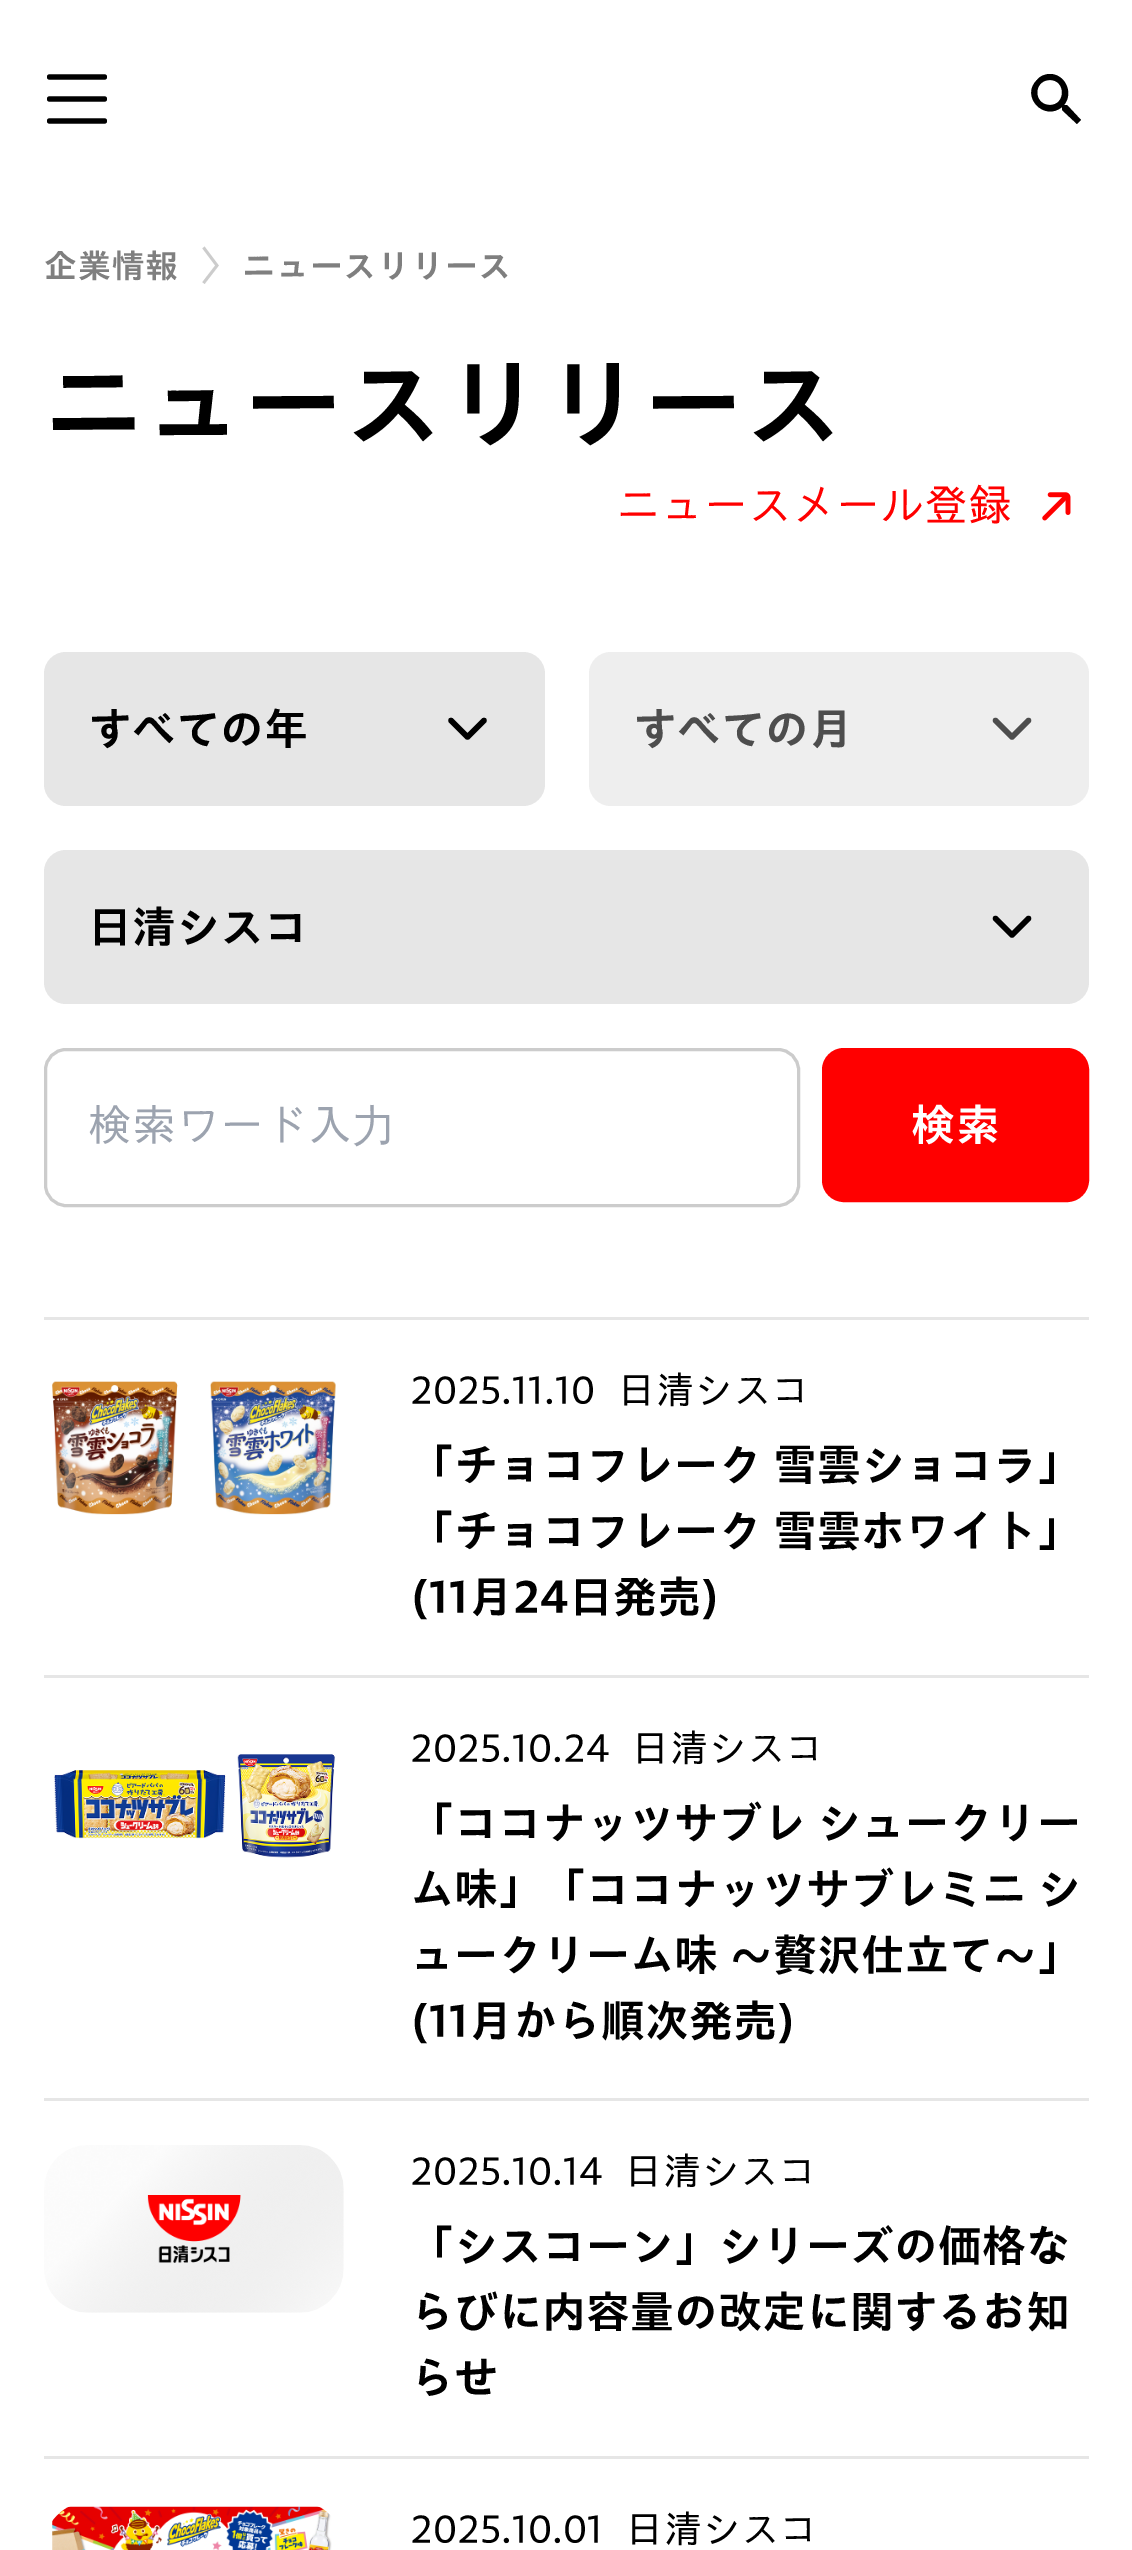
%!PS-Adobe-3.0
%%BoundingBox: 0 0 1132 2550
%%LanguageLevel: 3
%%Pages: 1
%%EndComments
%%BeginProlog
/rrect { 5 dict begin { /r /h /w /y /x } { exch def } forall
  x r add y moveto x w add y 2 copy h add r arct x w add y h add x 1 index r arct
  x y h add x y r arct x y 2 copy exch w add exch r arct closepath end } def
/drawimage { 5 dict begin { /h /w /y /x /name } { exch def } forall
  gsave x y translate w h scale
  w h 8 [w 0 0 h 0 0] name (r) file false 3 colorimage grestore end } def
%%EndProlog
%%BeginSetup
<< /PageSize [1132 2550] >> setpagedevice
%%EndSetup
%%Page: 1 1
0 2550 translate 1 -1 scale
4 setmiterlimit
1 setgray
0 0 1132 2550 rectfill
(images/1.raw) 47 74 60 50 drawimage
0 setgray
newpath 1050 74 moveto 1065 74 1074 93 1064 105 curveto 1067 105 lineto 1081 120 lineto 1077 124 lineto 1062 110 lineto 1062 107 lineto 1044 122 1020 96 1037 80 curveto 1040 76 1045 74 1050 74 curveto closepath 1050 80 moveto 1033 80 1033 105 1050 105 curveto 1066 105 1066 80 1050 80 curveto closepath fill
0.8 setgray
2.8 setlinewidth
newpath 203.5 247.5 moveto 217 265.5 lineto 203.5 283 lineto stroke
(images/2.raw) 1042 492 29 29 drawimage
0.902 setgray
44 652 501 154 22 rrect fill
0 setgray
5.5 setlinewidth
1 setlinecap
1 setlinejoin
newpath 451 720.5 moveto 467.5 737 lineto 484 720.5 lineto stroke
0.933 setgray
589 652 500 154 22 rrect fill
0.302 setgray
newpath 995.5 720.5 moveto 1012 737 lineto 1028.5 720.5 lineto stroke
0.902 setgray
44 850 1045 154 22 rrect fill
0 setgray
newpath 995.5 918.5 moveto 1012 935 lineto 1028.5 918.5 lineto stroke
0.8 setgray
3 setlinewidth
0 setlinecap
0 setlinejoin
45.5 1049.5 753 156 20.5 rrect stroke
1 0 0 setrgbcolor
825 1051 261 148 19 rrect gsave fill grestore
6 setlinewidth
stroke
0.902 setgray
44 1317 1045 3 rectfill
(images/3.raw) 52 1381 284 134 drawimage
44 1675 1045 3 rectfill
(images/4.raw) 54 1754 281 104 drawimage
44 2098 1045 3 rectfill
(images/5.raw) 44 2145 300 168 drawimage
44 2456 1045 3 rectfill
(images/6.raw) 52 2506 280 44 drawimage
/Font-Bold [33 0 0 -33 0 0] selectfont
0.498 setgray
44 278 moveto 0.75 0 (企業情報) ashow
242 278 moveto 0.75 0 (ニュースリリース) ashow
/Font-Bold [99 0 0 -99 0 0] selectfont
0 setgray
44 440 moveto 1 0 (ニュースリリース) ashow
/Font-Regular [44 0 0 -44 0 0] selectfont
1 0 0 setrgbcolor
616 521 moveto (ニュースメール登録) show
/Font-Bold [44 0 0 -44 0 0] selectfont
0 setgray
88 745 moveto (すべての年) show
0.302 setgray
633 745 moveto (すべての月) show
0 setgray
88 943 moveto (日清シスコ) show
/Font-Regular [44 0 0 -44 0 0] selectfont
0.612 0.639 0.686 setrgbcolor
88 1141 moveto (検索ワード入) show
/WenQuanYiZenHei-Medium [44 0 0 -44 0 0] selectfont
352 1141 moveto (力) show
/Font-Bold [44 0 0 -44 0 0] selectfont
1 setgray
911 1141 moveto 1 0 (検索) ashow
/Font-Regular [38.5 0 0 -38.5 0 0] selectfont
0 setgray
410 1404 moveto (2025.11.10) show
617 1404 moveto (日清シスコ) show
/Font-Bold [44 0 0 -44 0 0] selectfont
410 1481 moveto (「チョコフレーク 雪雲ショコラ」) show
410 1547 moveto (「チョコフレーク 雪雲ホワイト」) show
410 1613 moveto (\(11月24日発売\)) show
/Font-Regular [38.5 0 0 -38.5 0 0] selectfont
410 1762 moveto (2025.10.24) show
631 1762 moveto (日清シスコ) show
/Font-Bold [44 0 0 -44 0 0] selectfont
410 1839 moveto (「ココナッツサブレ シュークリー) show
410 1905 moveto (ム味」「ココナッツサブレミニ シ) show
410 1971 moveto (ュークリーム味 ～贅沢仕立て～」) show
410 2037 moveto (\(11月から順次発売\)) show
/Font-Regular [38.5 0 0 -38.5 0 0] selectfont
410 2185 moveto (2025.10.14) show
624 2185 moveto (日清シスコ) show
/Font-Bold [44 0 0 -44 0 0] selectfont
410 2262 moveto (「シスコーン」シリーズの価格な) show
410 2328 moveto (らびに内容量の改定に関するお知) show
410 2394 moveto (らせ) show
/Font-Regular [38.5 0 0 -38.5 0 0] selectfont
410 2543 moveto (2025.10.01) show
625 2543 moveto (日清シスコ) show
showpage
%%EOF
